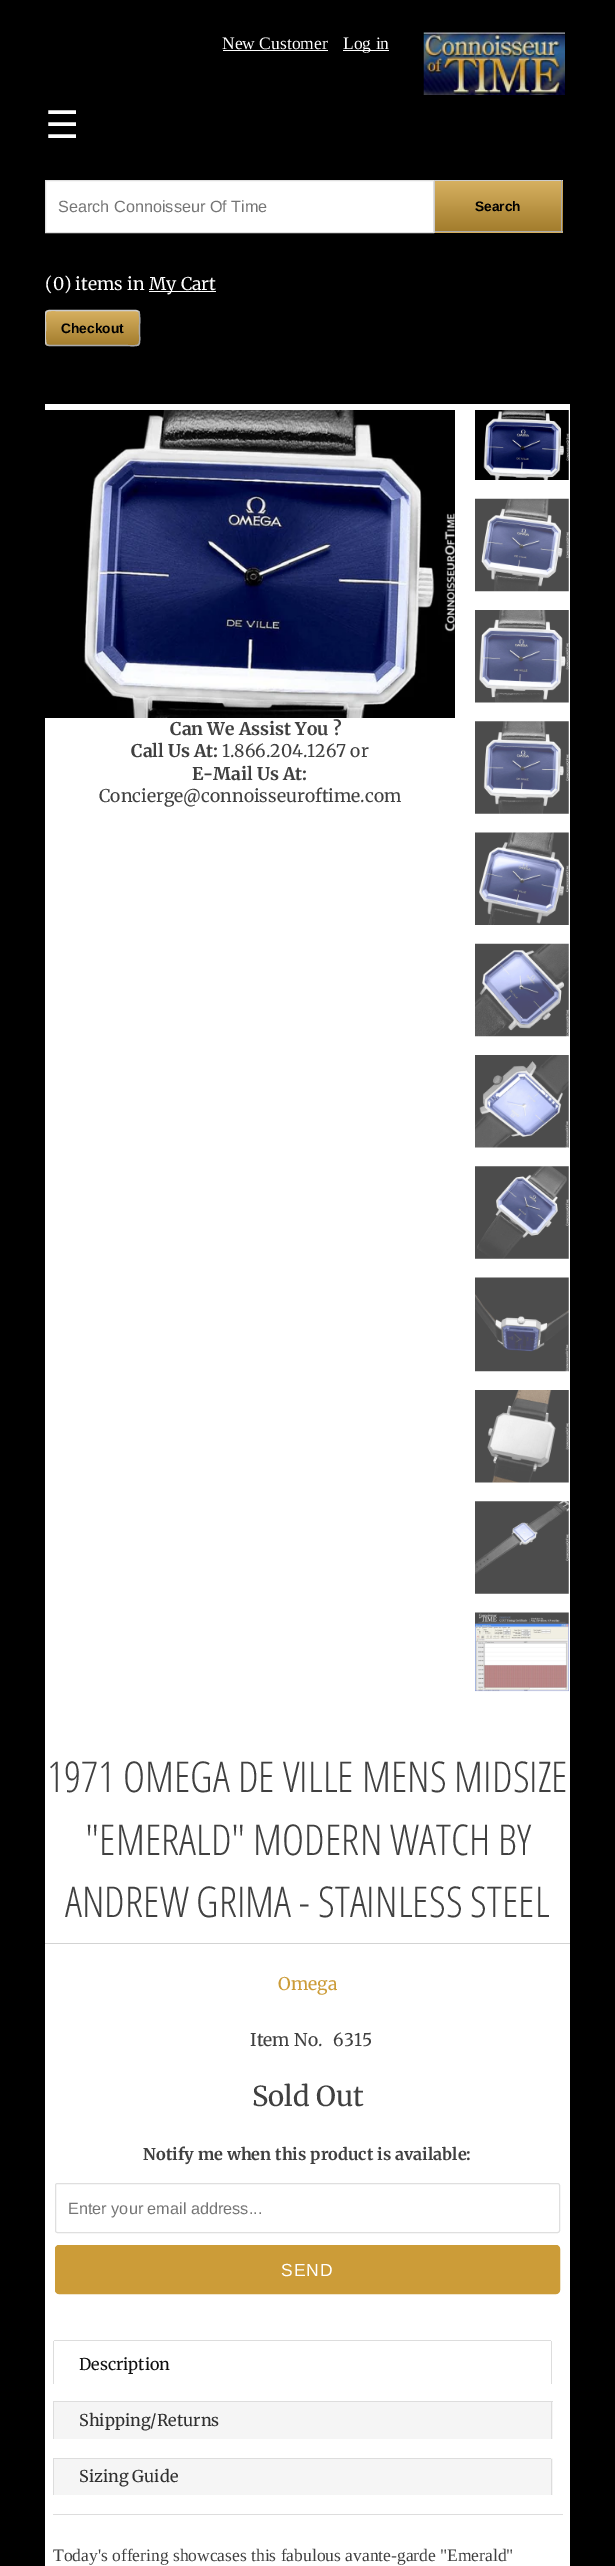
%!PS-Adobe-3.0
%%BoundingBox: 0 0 615 2566
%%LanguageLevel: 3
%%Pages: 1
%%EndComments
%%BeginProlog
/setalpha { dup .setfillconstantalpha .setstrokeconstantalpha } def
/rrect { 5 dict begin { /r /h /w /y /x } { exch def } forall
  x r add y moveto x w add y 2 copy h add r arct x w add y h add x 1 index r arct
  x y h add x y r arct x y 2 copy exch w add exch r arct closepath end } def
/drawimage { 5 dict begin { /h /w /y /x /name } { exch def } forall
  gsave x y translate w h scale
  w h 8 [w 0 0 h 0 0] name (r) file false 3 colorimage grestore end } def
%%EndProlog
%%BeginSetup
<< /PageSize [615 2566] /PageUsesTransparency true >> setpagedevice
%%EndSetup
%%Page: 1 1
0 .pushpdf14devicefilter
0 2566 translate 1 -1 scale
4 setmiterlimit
0 setgray
0 0 615 2566 rectfill
1 setgray
223 50 105 1 rectfill
343 50 46 1 rectfill
(images/1.raw) 423 32 142 63 drawimage
newpath 45.5 180.5 moveto 433.5 180.5 lineto 433.5 232.5 lineto 45.5 232.5 lineto closepath gsave fill grestore
0.875 setgray
stroke
gsave newpath 435 181 moveto 563 181 lineto 563 231 lineto 435 231 lineto closepath clip newpath
<< /ShadingType 2 /ColorSpace /DeviceRGB /Coords [498 181 498 231] /Extend [true true] /Function << /FunctionType 2 /Domain [0 1] /C0 [0.839 0.69 0.376] /C1 [0.639 0.49 0.176] /N 1 >> >> shfill grestore
gsave newpath 434 232 moveto 563 232 lineto 563 233 lineto 434 233 lineto closepath clip newpath
<< /ShadingType 2 /ColorSpace /DeviceRGB /Coords [498 231 498 281] /Extend [true true] /Function << /FunctionType 2 /Domain [0 1] /C0 [0.839 0.69 0.376] /C1 [0.639 0.49 0.176] /N 1 >> >> shfill grestore
0.8 setgray
434 180 129 1 rectfill
0.667 setgray
561 180 1 53 rectfill
434 231 129 1 rectfill
0.8 setgray
434 180 1 53 rectfill
1 setgray
149 291 67 1 rectfill
0.8 0.612 0.22 setrgbcolor
45 310 95 36 4 rrect fill
gsave
45 310 95 36 4 rrect clip newpath
0.2 setalpha
gsave newpath 45 310 moveto 140 310 lineto 140 311 lineto 45 311 lineto closepath clip newpath
<< /ShadingType 2 /ColorSpace /DeviceRGB /Coords [93 278 93 311] /Extend [true true] /Function << /FunctionType 2 /Domain [0 1] /C0 [1 1 1] /C1 [0 0 0] /N 1 >> >> shfill grestore
gsave newpath 45 311 moveto 140 311 lineto 140 345 lineto 45 345 lineto closepath clip newpath
<< /ShadingType 2 /ColorSpace /DeviceRGB /Coords [93 311 93 345] /Extend [true true] /Function << /FunctionType 2 /Domain [0 1] /C0 [1 1 1] /C1 [0 0 0] /N 1 >> >> shfill grestore
gsave newpath 45 345 moveto 140 345 lineto 140 346 lineto 45 346 lineto closepath clip newpath
<< /ShadingType 2 /ColorSpace /DeviceRGB /Coords [93 345 93 379] /Extend [true true] /Function << /FunctionType 2 /Domain [0 1] /C0 [1 1 1] /C1 [0 0 0] /N 1 >> >> shfill grestore
grestore
0.667 setgray
1.2 setlinewidth
newpath 138.5 311.5 moveto 140.5 313.5 139.5 325 139.5 328 curveto 139.5 349 143 345.5 121.5 345.5 curveto 49 345.5 lineto 46.5 344.5 lineto stroke
gsave
45 148 525 256 rectclip
0.8 setgray
newpath 46.5 344.5 moveto 44.5 342.5 45.5 331 45.5 328 curveto 45.5 307.5 42 310.5 63.5 310.5 curveto 136 310.5 lineto 138.5 311.5 lineto stroke
grestore
1 setgray
45 404 525 2162 rectfill
(images/2.raw) 45 410 410 308 drawimage
(images/3.raw) 475 410 94 70 drawimage
(images/4.raw) 475 498 94 94 drawimage
(images/5.raw) 475 610 94 93 drawimage
(images/6.raw) 475 721 94 93 drawimage
(images/7.raw) 475 832 94 93 drawimage
(images/8.raw) 475 943 94 94 drawimage
(images/9.raw) 475 1055 94 93 drawimage
(images/10.raw) 475 1166 94 93 drawimage
(images/11.raw) 475 1277 94 95 drawimage
(images/12.raw) 475 1390 94 93 drawimage
(images/13.raw) 475 1501 94 93 drawimage
(images/14.raw) 475 1612 94 80 drawimage
0.827 setgray
45 1943 525 1 rectfill
0.875 setgray
1 setlinewidth
55.5 2183.5 504 49 2 rrect stroke
0.8 0.612 0.22 setrgbcolor
55.5 2245.5 504 48 3.5 rrect gsave fill grestore
stroke
0.867 setgray
53 2514 510 1 rectfill
54 2340 497 1 rectfill
551 2341 1 43 rectfill
53 2341 1 43 rectfill
0.961 setgray
54 2402 499 37 rectfill
0.867 setgray
53 2401 500 1 rectfill
551 2401 1 38 rectfill
53 2401 1 38 rectfill
0.961 setgray
newpath 53 2458 moveto 550.5 2458 lineto 552 2458 553 2459 553 2460.5 curveto 553 2495 lineto 53 2495 lineto closepath fill
0.867 setgray
53 2458 498 1 rectfill
551 2459 1 36 rectfill
53 2458 1 37 rectfill
/LiberationSerif-Regular [17.5 0 0 -17.5 0 0] selectfont
1 setgray
222 49 moveto (New Customer) show
343 49 moveto (Log in) show
/DejaVuSans-Regular [38 0 0 -38 0 0] selectfont
45 138 moveto (☰) show
/LiberationSans-Regular [16.25 0 0 -16.25 0 0] selectfont
0.459 setgray
58 212 moveto (Search Connoisseur Of Time) show
/LiberationSans-Bold [13.75 0 0 -13.75 0 0] selectfont
0 setgray
475 211 moveto (Search) show
/Merriweather-Regular [17.5 0 0 -17.5 0 0] selectfont
1 setgray
45 290 moveto (\(0\) items in) show
149 290 moveto (My Cart) show
/LiberationSans-Bold [13.75 0 0 -13.75 0 0] selectfont
0 setgray
61 333 moveto (Checkout) show
/Merriweather-Bold [17.5 0 0 -17.5 0 0] selectfont
0.251 setgray
170 735 moveto (Can We Assist You ?) show
131 757 moveto (Call Us At:) show
/Merriweather-Regular [17.5 0 0 -17.5 0 0] selectfont
222 757 moveto (1.866.204.1267 or) show
/Merriweather-Bold [17.5 0 0 -17.5 0 0] selectfont
192 780 moveto (E-Mail Us At:) show
/Merriweather-Regular [17.5 0 0 -17.5 0 0] selectfont
99 802 moveto (Concierge@connoisseuroftime.com) show
/OpenSansCondensed-Light [42.5 0 0 -42.5 0 0] selectfont
47 1792 moveto (1971 OMEGA DE VILLE MENS MIDSIZE) show
85 1855 moveto ("EMERALD" MODERN WATCH BY) show
65 1917 moveto (ANDREW GRIMA - STAINLESS STEEL) show
/Merriweather-Regular [17.5 0 0 -17.5 0 0] selectfont
0.8 0.612 0.22 setrgbcolor
278 1990 moveto (Omega) show
0.251 setgray
250 2046 moveto (Item No.) show
333 2046 moveto (6315) show
/Merriweather-Regular [27.5 0 0 -27.5 0 0] selectfont
252 2106 moveto (Sold Out) show
/Merriweather-Bold [16.25 0 0 -16.25 0 0] selectfont
143 2160 moveto (Notify me when this product is available:) show
/LiberationSans-Regular [16.25 0 0 -16.25 0 0] selectfont
0.459 setgray
68 2214 moveto (Enter your email address...) show
/LiberationSans-Regular [17.5 0 0 -17.5 0 0] selectfont
1 setgray
281 2276 moveto 1 0 (SEND) ashow
/Merriweather-Regular [16.25 0 0 -16.25 0 0] selectfont
0.067 setgray
79 2370 moveto (Description) show
0.188 setgray
79 2426 moveto (Shipping/Returns) show
79 2482 moveto (Sizing Guide) show
/LiberationSerif-Regular [17.5 0 0 -17.5 0 0] selectfont
0.251 setgray
53 2561 moveto (Today's offering showcases this fabulous avante-garde "Emerald") show
.poppdf14devicefilter showpage
%%EOF
